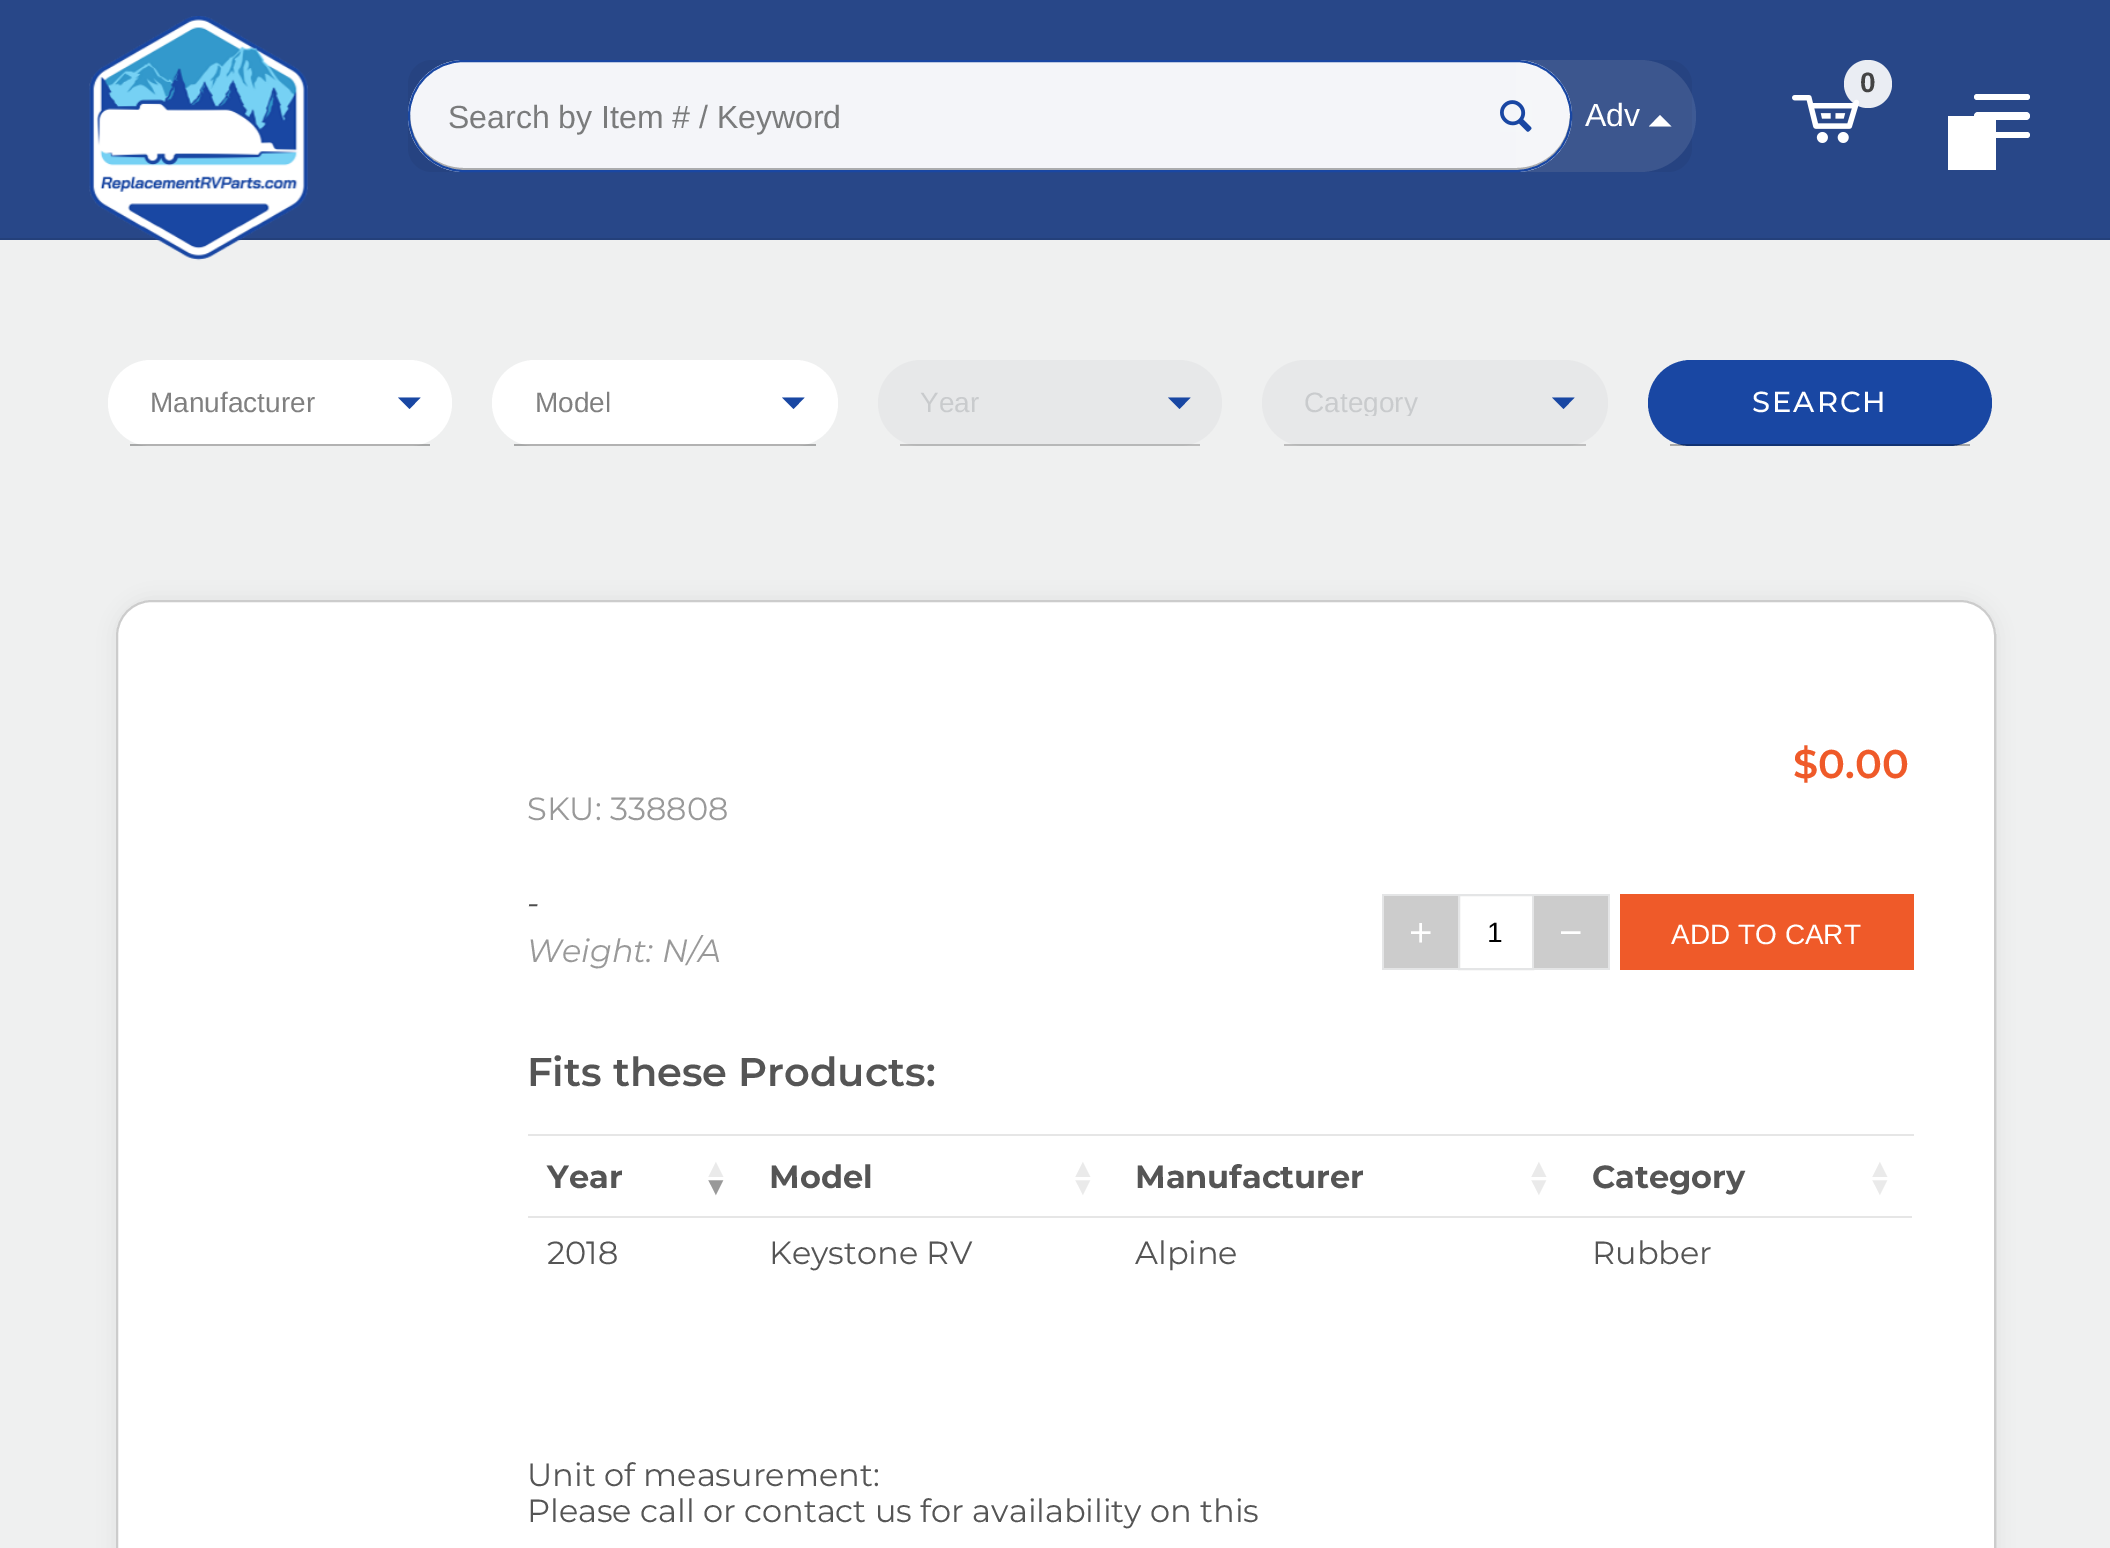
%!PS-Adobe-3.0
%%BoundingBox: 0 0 2110 1548
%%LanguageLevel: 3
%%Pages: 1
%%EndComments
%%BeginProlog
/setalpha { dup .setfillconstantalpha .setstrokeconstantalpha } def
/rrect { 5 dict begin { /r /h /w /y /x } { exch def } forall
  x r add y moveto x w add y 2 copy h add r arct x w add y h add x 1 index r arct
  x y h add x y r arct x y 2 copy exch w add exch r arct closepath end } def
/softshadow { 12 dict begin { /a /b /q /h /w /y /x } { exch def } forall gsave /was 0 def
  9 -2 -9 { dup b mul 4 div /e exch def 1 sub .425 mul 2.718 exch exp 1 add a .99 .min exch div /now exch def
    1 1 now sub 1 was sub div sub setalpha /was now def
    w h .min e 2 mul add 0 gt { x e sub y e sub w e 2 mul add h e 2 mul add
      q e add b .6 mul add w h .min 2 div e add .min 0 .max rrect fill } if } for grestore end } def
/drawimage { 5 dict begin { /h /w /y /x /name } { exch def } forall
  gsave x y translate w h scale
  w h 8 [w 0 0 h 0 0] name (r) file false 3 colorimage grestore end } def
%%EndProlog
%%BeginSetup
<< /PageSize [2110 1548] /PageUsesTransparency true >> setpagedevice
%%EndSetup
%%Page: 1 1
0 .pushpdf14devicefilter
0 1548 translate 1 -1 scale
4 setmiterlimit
0.937 0.941 0.941 setrgbcolor
0 0 2110 1548 rectfill
0.157 0.278 0.533 setrgbcolor
0 0 2110 238 rectfill
0.141 0.251 0.478 setrgbcolor
0 238 2110 2 rectfill
(images/1.raw) 89 16 219 245 drawimage
(images/2.raw) 1792 95 68 48 drawimage
0.9 setalpha
1 setgray
newpath 1868 84 24 0 360 arc closepath fill
1 setalpha
0.149 0.263 0.506 setrgbcolor
408 60 1284 112 24 rrect fill
0.1 setalpha
1 setgray
newpath 1516 60 moveto 1640 60 lineto 1671 60 1696 85 1696 116 curveto 1696 147 1671 172 1640 172 curveto 1516 172 lineto closepath fill
0.95 setalpha
408 60 1164 112 56 rrect fill
1 setalpha
0.671 0.675 0.682 setrgbcolor
newpath 410 115 moveto 409 145 434 170 464 170 curveto 1516 170 lineto 1546 170 1571 145 1570 115 curveto 1569 145 1546 168 1516 168 curveto 464 168 lineto 434 168 411 145 410 115 curveto closepath fill
0.098 0.278 0.639 setrgbcolor
2 setlinewidth
409 61 1162 110 55 rrect stroke
(images/3.raw) 1500 100 32 32 drawimage
1 setgray
newpath 1660 115 moveto 1671.5 126.5 lineto 1649 126.5 lineto closepath fill
108 360 344 86 43 rrect fill
0.3 setalpha
0 setgray
130 444 300 2 rectfill
1 setalpha
0.098 0.278 0.639 setrgbcolor
newpath 409.5 409 moveto 398 397.5 lineto 420.5 397.5 lineto closepath fill
1 setgray
492 360 346 86 43 rrect fill
0.3 setalpha
0 setgray
514 444 302 2 rectfill
1 setalpha
0.098 0.278 0.639 setrgbcolor
newpath 793.5 409 moveto 782 397.5 lineto 804.5 397.5 lineto closepath fill
0.906 0.91 0.914 setrgbcolor
878 360 344 86 43 rrect fill
0.3 setalpha
0.282 setgray
900 444 300 2 rectfill
1 setalpha
0.098 0.278 0.639 setrgbcolor
newpath 1179.5 409 moveto 1168 397.5 lineto 1190.5 397.5 lineto closepath fill
0.906 0.91 0.914 setrgbcolor
1262 360 346 86 43 rrect fill
0.3 setalpha
0.282 setgray
1284 444 302 2 rectfill
1 setalpha
0.098 0.278 0.639 setrgbcolor
newpath 1563.5 409 moveto 1552 397.5 lineto 1574.5 397.5 lineto closepath fill
1648 360 344 86 43 rrect fill
0.3 setalpha
0 setgray
1670 444 300 2 rectfill
1 setalpha
1 setgray
1974 112 56 8 4 rrect fill
1974 132 56 6 3 rrect fill
1948 116 48 54 rectfill
1974 94 56 6 3 rrect fill
0 setgray
114 598 1884 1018 38 10 0.05 softshadow
1 setgray
116 600 1880 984 36 rrect fill
0.2 setalpha
0 setgray
117 601 1878 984 35 rrect stroke
1 setalpha
0.8 setgray
1384 896 74 72 rectfill
0.894 0.898 0.902 setrgbcolor
1382 894 76 2 rectfill
1382 968 76 2 rectfill
1382 894 2 76 rectfill
1459 895 74 74 rectstroke
0.8 setgray
1534 896 74 72 rectfill
0.894 0.898 0.902 setrgbcolor
1534 894 76 2 rectfill
1608 894 2 76 rectfill
1534 968 76 2 rectfill
0.937 0.353 0.161 setrgbcolor
1620 894 294 76 rectfill
0.902 setgray
528 1134 1386 2 rectfill
528 1216 1384 2 rectfill
/LiberationSans-Bold [28 0 0 -28 0 0] selectfont
0.267 setgray
1860 92 moveto (0) show
/LiberationSans-Regular [32 0 0 -32 0 0] selectfont
0.478 0.482 0.486 setrgbcolor
448 128 moveto (Search by Item # / Keyword) show
1 setgray
1585 126 moveto (Adv) show
/LiberationSans-Regular [28 0 0 -28 0 0] selectfont
0.502 setgray
150 412 moveto (Manufacturer) show
535 412 moveto (Model) show
0.788 0.796 0.804 setrgbcolor
920 412 moveto (Year) show
gsave
1302 388 266 28 rectclip
1304 412 moveto (Category) show
grestore
/Montserrat-Medium [29 0 0 -29 0 0] selectfont
1 setgray
1752 412 moveto 2 0 (SEARCH) ashow
/Montserrat-SemiBold [40 0 0 -40 0 0] selectfont
0.937 0.353 0.161 setrgbcolor
1793 778 moveto ($0.00) show
/Montserrat-Regular [32 0 0 -32 0 0] selectfont
0.6 setgray
527 820 moveto (SKU: 338808) show
/Montserrat-Italic [32 0 0 -32 0 0] selectfont
0.302 setgray
527 914 moveto (-) show
0.6 setgray
527 962 moveto (Weight: N/A) show
/LiberationSans-Regular [40 0 0 -40 0 0] selectfont
1 setgray
1409 946 moveto (+) show
/LiberationSans-Regular [28 0 0 -28 0 0] selectfont
0 setgray
1487 942 moveto (1) show
/LiberationSans-Regular [40 0 0 -40 0 0] selectfont
1 setgray
1559 946 moveto (−) show
/LiberationSans-Regular [28 0 0 -28 0 0] selectfont
1671 944 moveto (ADD TO CART) show
/Montserrat-SemiBold [40 0 0 -40 0 0] selectfont
0.333 setgray
527 1086 moveto (Fits these Products:) show
/Montserrat-Bold [32 0 0 -32 0 0] selectfont
547 1188 moveto (Year) show
/LiberationSans-Bold [26 0 0 -26 0 0] selectfont
0.918 setgray
703 1177 moveto (▲) show
0.6 setgray
703 1195 moveto (▼) show
/Montserrat-Bold [32 0 0 -32 0 0] selectfont
0.333 setgray
769 1188 moveto (Model) show
/LiberationSans-Bold [26 0 0 -26 0 0] selectfont
0.918 setgray
1070 1177 moveto (▲) show
1070 1195 moveto (▼) show
/Montserrat-Bold [32 0 0 -32 0 0] selectfont
0.333 setgray
1135 1188 moveto (Manufacturer) show
/LiberationSans-Bold [26 0 0 -26 0 0] selectfont
0.918 setgray
1526 1177 moveto (▲) show
1526 1195 moveto (▼) show
/Montserrat-Bold [32 0 0 -32 0 0] selectfont
0.333 setgray
1592 1188 moveto (Category) show
/LiberationSans-Bold [26 0 0 -26 0 0] selectfont
0.918 setgray
1867 1177 moveto (▲) show
1867 1195 moveto (▼) show
/Montserrat-Regular [32 0 0 -32 0 0] selectfont
0.333 setgray
547 1264 moveto (2018) show
769 1264 moveto (Keystone RV) show
1135 1264 moveto (Alpine) show
1592 1264 moveto (Rubber) show
527 1486 moveto (Unit of measurement:) show
527 1522 moveto (Please call or contact us for availability on this) show
.poppdf14devicefilter showpage
%%EOF
